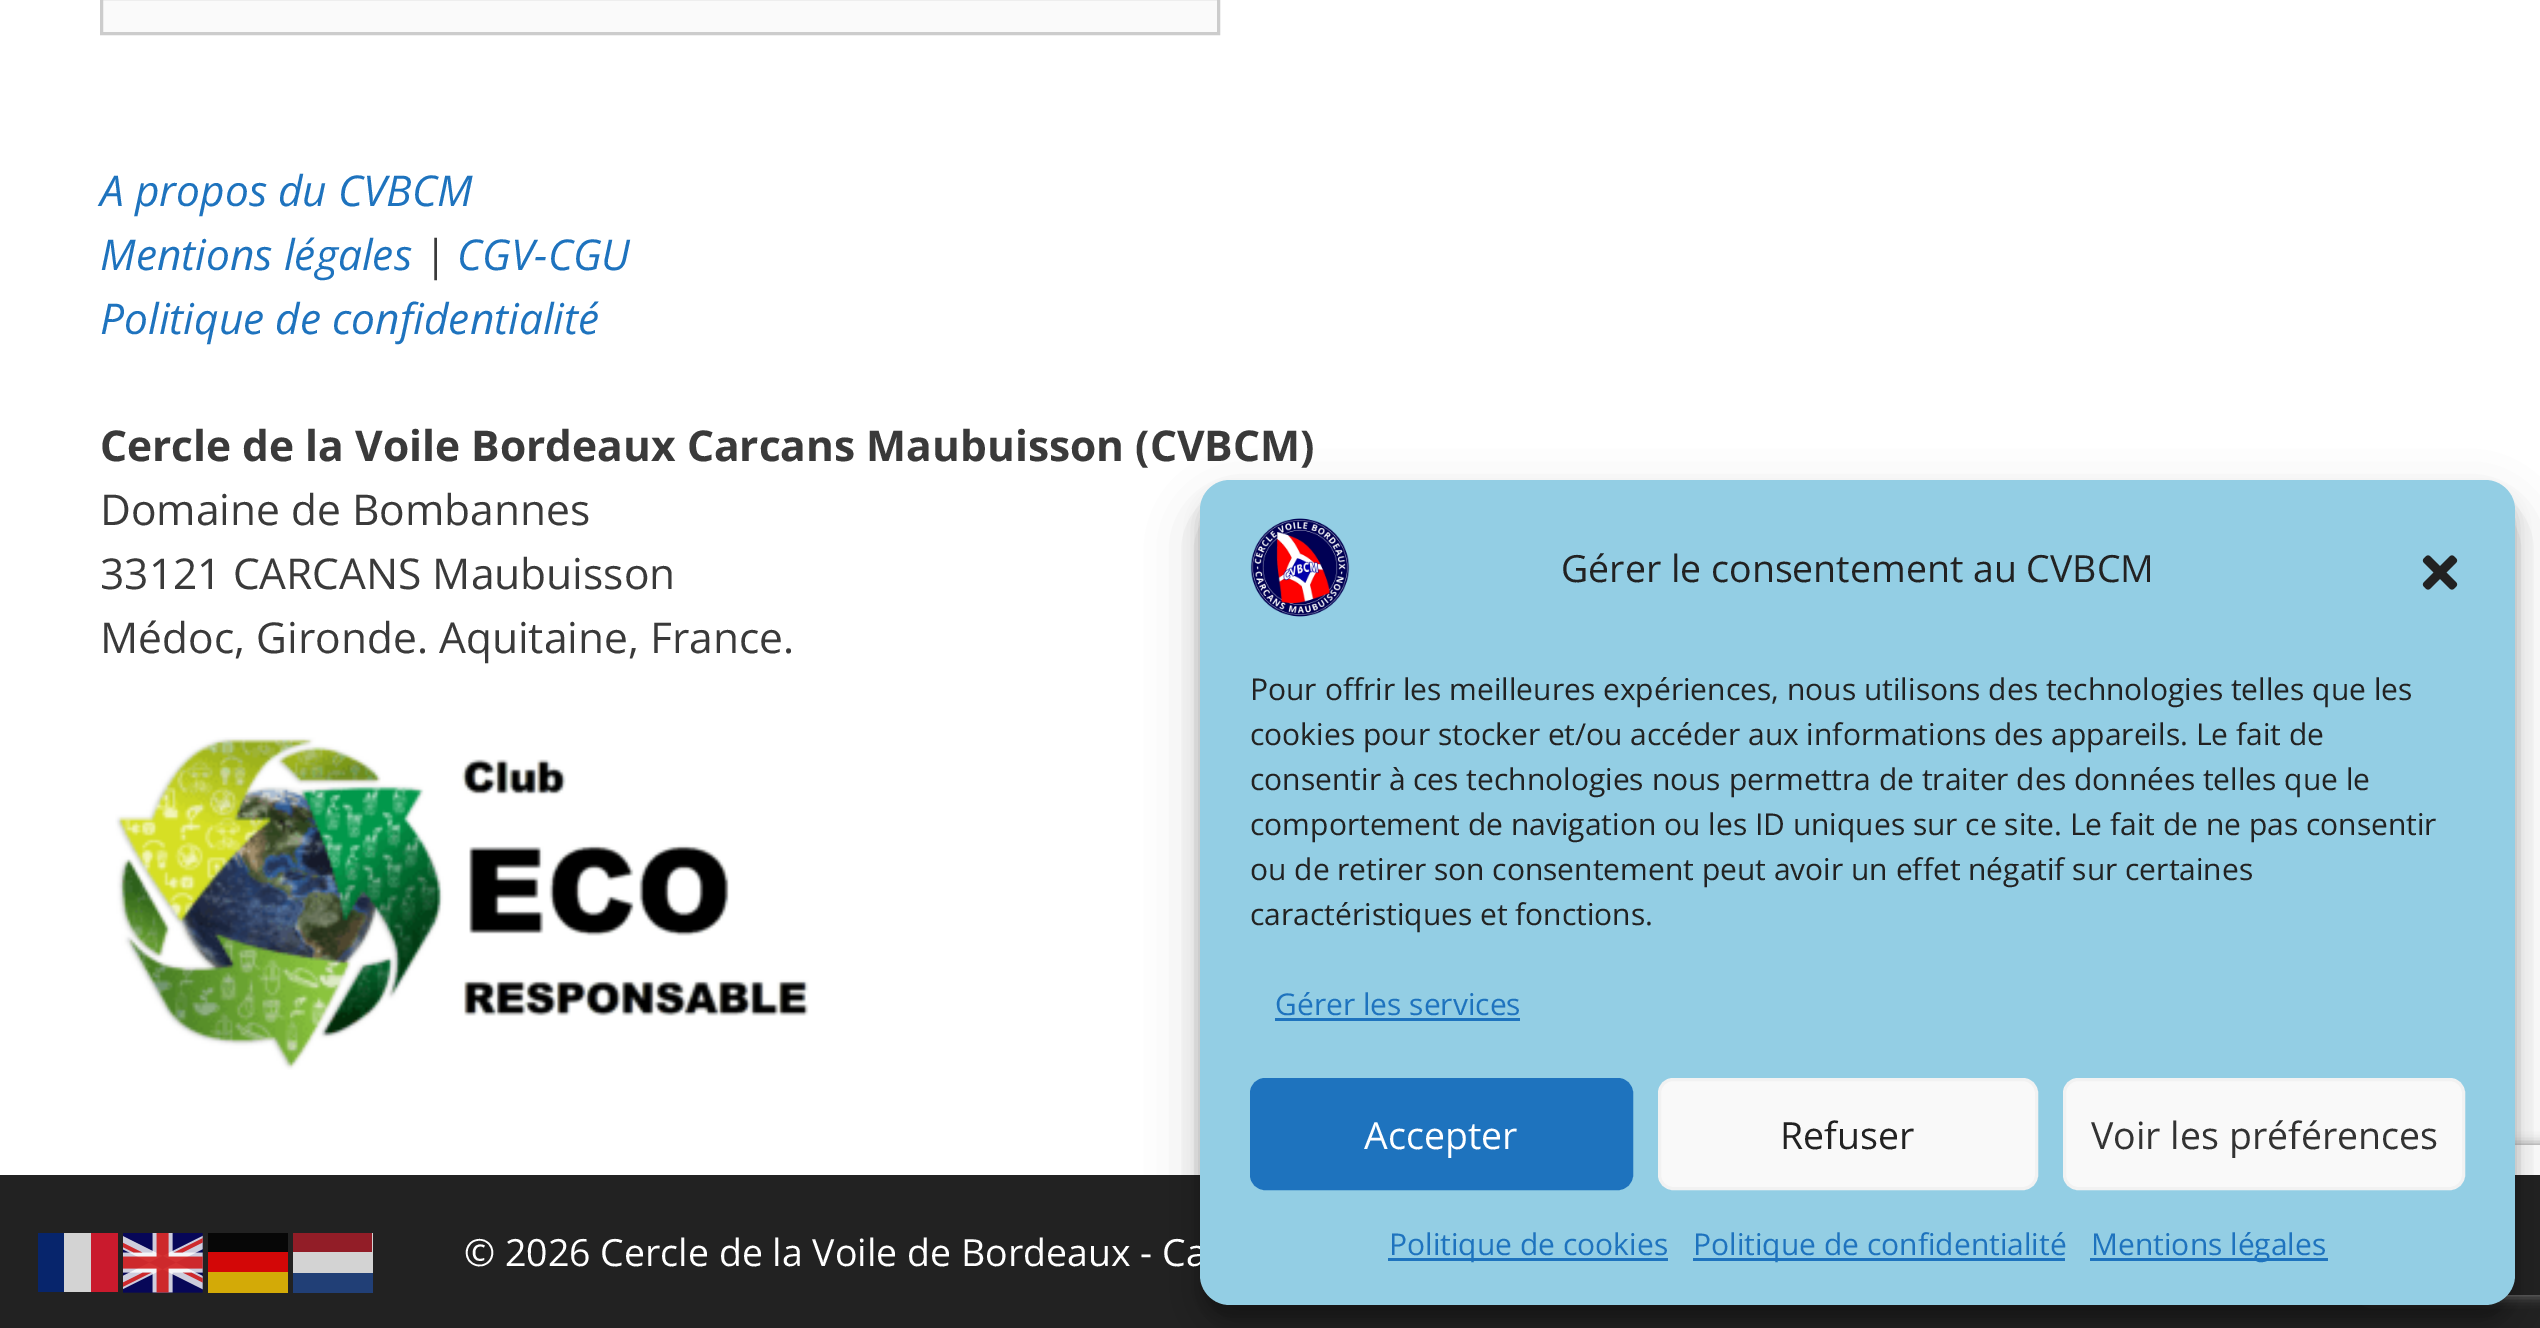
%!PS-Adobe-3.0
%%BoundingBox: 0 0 2540 1328
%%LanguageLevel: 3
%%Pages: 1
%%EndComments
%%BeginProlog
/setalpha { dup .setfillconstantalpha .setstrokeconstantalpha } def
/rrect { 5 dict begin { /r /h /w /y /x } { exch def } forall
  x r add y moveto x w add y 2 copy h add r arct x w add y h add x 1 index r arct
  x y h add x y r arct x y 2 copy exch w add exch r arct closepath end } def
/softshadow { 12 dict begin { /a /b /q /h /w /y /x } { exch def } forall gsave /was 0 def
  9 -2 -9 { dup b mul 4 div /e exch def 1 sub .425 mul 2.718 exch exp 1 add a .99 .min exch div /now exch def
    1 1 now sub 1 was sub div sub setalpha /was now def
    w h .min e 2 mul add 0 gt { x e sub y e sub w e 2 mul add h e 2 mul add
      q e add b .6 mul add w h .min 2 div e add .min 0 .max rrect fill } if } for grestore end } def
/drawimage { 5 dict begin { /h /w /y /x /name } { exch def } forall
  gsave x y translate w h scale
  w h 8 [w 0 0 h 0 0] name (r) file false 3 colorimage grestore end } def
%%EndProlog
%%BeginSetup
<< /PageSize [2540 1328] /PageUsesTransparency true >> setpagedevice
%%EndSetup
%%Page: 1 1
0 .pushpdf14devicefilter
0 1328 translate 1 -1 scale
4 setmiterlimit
1 setgray
0 0 2540 1328 rectfill
0.98 setgray
newpath 101.5 -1.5 moveto 1218.5 -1.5 lineto 1218.5 33.5 lineto 101.5 33.5 lineto closepath gsave fill grestore
0.8 setgray
3 setlinewidth
stroke
(images/1.raw) 115 737 694 333 drawimage
0.133 setgray
0 1175 2540 153 rectfill
0 setgray
1200 495 1315 825 30 7.5 0.23 softshadow
1200 505 1315 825 30 25 0.19 softshadow
gsave
newpath 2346 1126 moveto 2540 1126 lineto 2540 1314 lineto 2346 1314 lineto closepath 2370 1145 moveto 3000 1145 lineto 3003 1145 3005 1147 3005 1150 curveto 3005 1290 lineto 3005 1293 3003 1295 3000 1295 curveto 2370 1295 lineto 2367 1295 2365 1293 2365 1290 curveto 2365 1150 lineto 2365 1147 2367 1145 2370 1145 curveto closepath eoclip newpath
0.502 setgray
2365 1145 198 150 5 6 1 softshadow
grestore
0.027 0.145 0.424 setrgbcolor
38 1233 26 59 rectfill
0.827 setgray
64 1233 27 59 rectfill
0.788 0.102 0.176 setrgbcolor
91 1233 27 59 rectfill
(images/4.raw) 123 1233 80 60 drawimage
0.027 setgray
208 1233 80 19 rectfill
0.827 setgray
293 1233 80 40 rectfill
0.573 0.114 0.153 setrgbcolor
293 1233 79 19 rectfill
0.827 0.027 0.027 setrgbcolor
208 1252 80 20 rectfill
0.827 0.667 0.027 setrgbcolor
208 1272 80 21 rectfill
0.129 0.247 0.463 setrgbcolor
293 1273 80 20 rectfill
/OpenSans-Italic [42.5 0 0 -42.5 0 0] selectfont
0.118 0.451 0.745 setrgbcolor
100 206 moveto (A propos du CVBCM) show
100 270 moveto (Mentions légales) show
0.227 setgray
423 270 moveto (|) show
0.118 0.451 0.745 setrgbcolor
457 270 moveto (CGV-CGU) show
100 334 moveto (Politique de confidentialité) show
/OpenSans-Bold [42.5 0 0 -42.5 0 0] selectfont
0.227 setgray
100 461 moveto (Cercle de la Voile Bordeaux Carcans Maubuisson \(CVBCM\)) show
/OpenSans-Regular [42.5 0 0 -42.5 0 0] selectfont
100 525 moveto (Domaine de Bombannes) show
100 589 moveto (33121 CARCANS Maubuisson) show
100 653 moveto (Médoc, Gironde. Aquitaine, France.) show
/OpenSans-Regular [37.5 0 0 -37.5 0 0] selectfont
1 setgray
464 1266 moveto (© 2026 Cercle de la Voile de Bordeaux - Ca) show
0.576 0.808 0.894 setrgbcolor
1200 480 1315 825 30 rrect fill
(images/2.raw) 1250 518 100 99 drawimage
0.133 setgray
1561 582 moveto (Gérer le consentement au CVBCM) show
(images/3.raw) 2422 555 36 35 drawimage
/OpenSans-Regular [30 0 0 -30 0 0] selectfont
1250 700 moveto (Pour offrir les meilleures expériences, nous utilisons des technologies telles que les) show
1250 745 moveto (cookies pour stocker et/ou accéder aux informations des appareils. Le fait de) show
1250 790 moveto (consentir à ces technologies nous permettra de traiter des données telles que le) show
1250 835 moveto (comportement de navigation ou les ID uniques sur ce site. Le fait de ne pas consentir) show
1250 880 moveto (ou de retirer son consentement peut avoir un effet négatif sur certaines) show
1250 925 moveto (caractéristiques et fonctions.) show
0.118 0.451 0.745 setrgbcolor
1275 1015 moveto (Gérer les services) show
1275 1018 245 3 rectfill
1251.5 1079.5 380 109 13.5 rrect gsave fill grestore
stroke
/OpenSans-Regular [37.5 0 0 -37.5 0 0] selectfont
1 setgray
1364 1149 moveto (Accepter) show
0.976 setgray
1659.5 1079.5 377 109 13.5 rrect gsave fill grestore
0.949 setgray
stroke
0.133 setgray
1780 1149 moveto (Refuser) show
0.976 setgray
2064.5 1079.5 399 109 13.5 rrect gsave fill grestore
0.949 setgray
stroke
0.2 setgray
2091 1149 moveto (Voir les préférences) show
0.118 0.451 0.745 setrgbcolor
1388 1258 280 3 rectfill
/OpenSans-Regular [30 0 0 -30 0 0] selectfont
1389 1255 moveto (Politique de cookies) show
1693 1258 372 3 rectfill
1693 1255 moveto (Politique de confidentialité) show
2090 1258 238 3 rectfill
2091 1255 moveto (Mentions légales) show
.poppdf14devicefilter showpage
%%EOF
